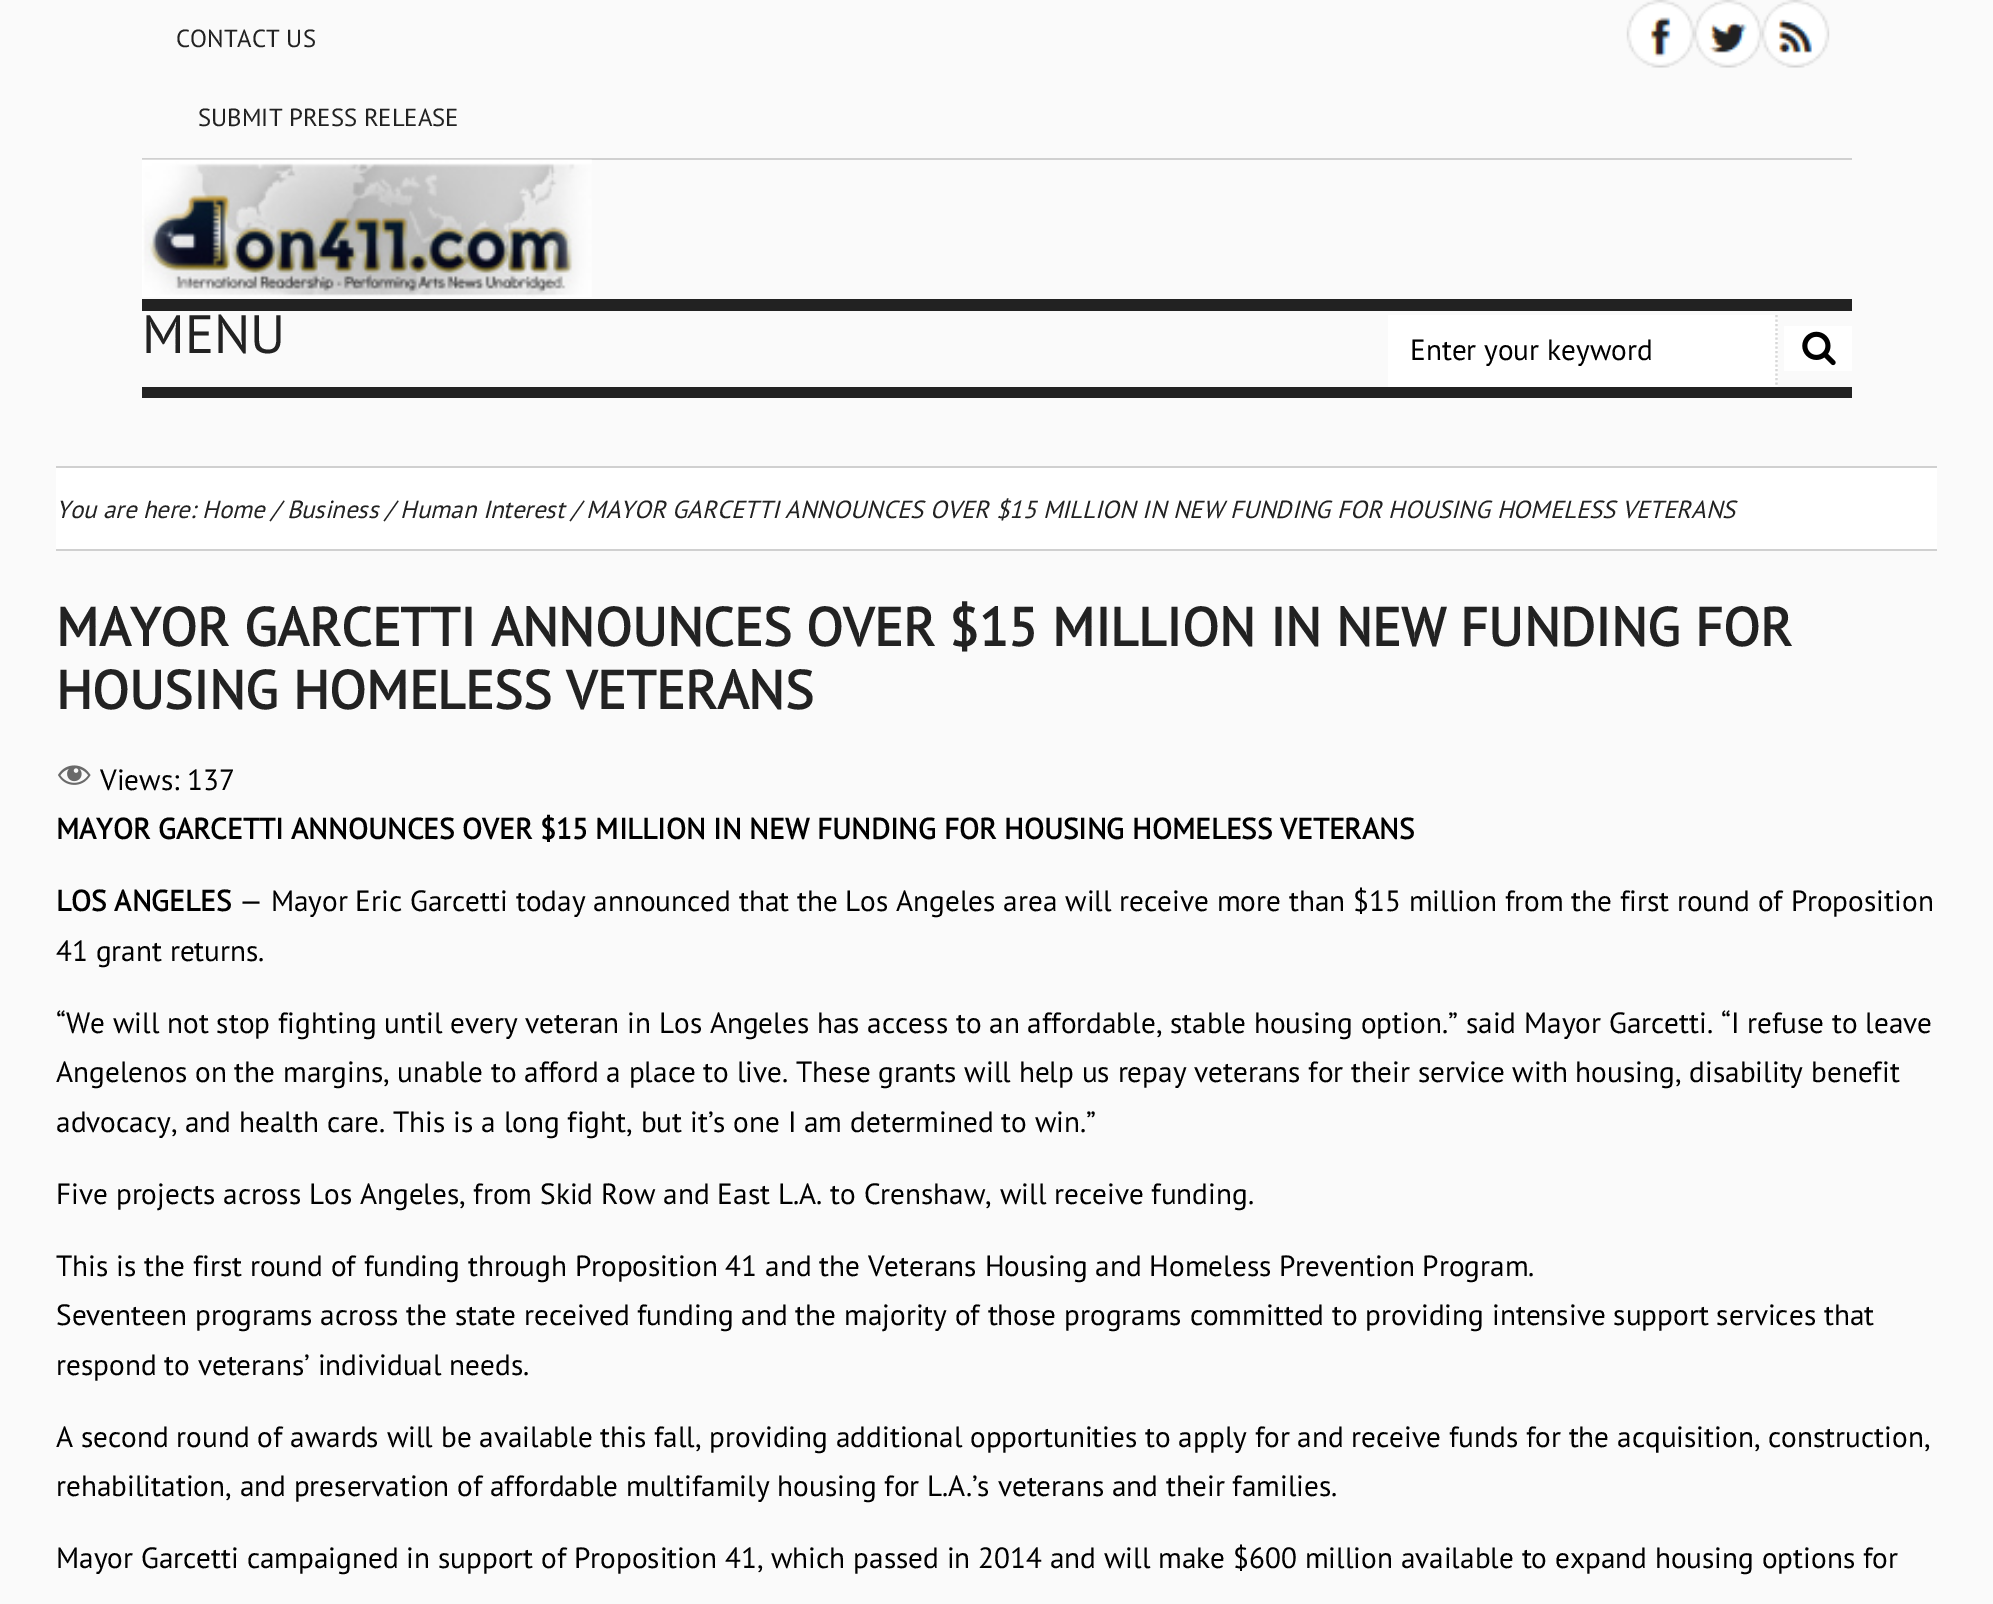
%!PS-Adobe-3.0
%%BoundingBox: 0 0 1993 1604
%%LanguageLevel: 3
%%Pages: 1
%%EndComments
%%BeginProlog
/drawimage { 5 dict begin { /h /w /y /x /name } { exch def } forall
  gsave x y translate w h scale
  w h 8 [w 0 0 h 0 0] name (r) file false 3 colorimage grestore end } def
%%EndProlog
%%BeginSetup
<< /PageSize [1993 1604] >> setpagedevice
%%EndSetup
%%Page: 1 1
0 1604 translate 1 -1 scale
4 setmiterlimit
0.98 setgray
0 0 1993 1604 rectfill
0.816 setgray
142 158 1710 2 rectfill
(images/1.raw) 1626 0 69 68 drawimage
(images/2.raw) 1694 0 68 68 drawimage
(images/3.raw) 1762 0 68 68 drawimage
(images/4.raw) 142 159 450 138 drawimage
0.133 setgray
142 299 1710 12 rectfill
142 387 1710 11 rectfill
1 setgray
1388 315 390 72 rectfill
0.843 setgray
2.2 setlinewidth
[2.25 2.25] 0 setdash
newpath 1776.5 315 moveto 1776.5 387 lineto stroke
1 setgray
1784 326 68 45 rectfill
(images/5.raw) 1802 331 34 35 drawimage
56 468 1881 81 rectfill
0.816 setgray
56 466 1881 2 rectfill
56 549 1881 2 rectfill
(images/6.raw) 58 765 33 20 drawimage
/PTSans-Regular [24.75 0 0 -24.75 0 0] selectfont
0.133 setgray
176 47 moveto (CONTACT US) show
198 126 moveto (SUBMIT PRESS RELEASE) show
/PTSans-Regular [54 0 0 -54 0 0] selectfont
142 353 moveto (MENU) show
/PTSans-Regular [29.25 0 0 -29.25 0 0] selectfont
0 setgray
1410 360 moveto (Enter your keyword) show
/PTSans-Italic [24.75 0 0 -24.75 0 0] selectfont
0.133 setgray
56 518 moveto (You are here: Home / Business / Human Interest / MAYOR GARCETTI ANNOUNCES OVER $15 MILLION IN NEW FUNDING FOR HOUSING HOMELESS VETERANS) show
/PTSans-Bold [54 0 0 -54 0 0] selectfont
56 646 moveto (MAYOR GARCETTI ANNOUNCES OVER $15 MILLION IN NEW FUNDING FOR) show
56 709 moveto (HOUSING HOMELESS VETERANS) show
/PTSans-Regular [29.25 0 0 -29.25 0 0] selectfont
0 setgray
100 790 moveto (Views: 137) show
/PTSans-Bold [29.25 0 0 -29.25 0 0] selectfont
56 839 moveto (MAYOR GARCETTI ANNOUNCES OVER $15 MILLION IN NEW FUNDING FOR HOUSING HOMELESS VETERANS) show
56 911 moveto (LOS ANGELES) show
/PTSans-Regular [29.25 0 0 -29.25 0 0] selectfont
239 911 moveto (— Mayor Eric Garcetti today announced that the Los Angeles area will receive more than $15 million from the first round of Proposition) show
56 961 moveto (41 grant returns.) show
56 1033 moveto (“We will not stop fighting until every veteran in Los Angeles has access to an affordable, stable housing option.” said Mayor Garcetti. “I refuse to leave) show
56 1082 moveto (Angelenos on the margins, unable to afford a place to live. These grants will help us repay veterans for their service with housing, disability benefit) show
56 1132 moveto (advocacy, and health care. This is a long fight, but it’s one I am determined to win.”) show
56 1204 moveto (Five projects across Los Angeles, from Skid Row and East L.A. to Crenshaw, will receive funding.) show
56 1276 moveto (This is the first round of funding through Proposition 41 and the Veterans Housing and Homeless Prevention Program.) show
56 1325 moveto (Seventeen programs across the state received funding and the majority of those programs committed to providing intensive support services that) show
56 1375 moveto (respond to veterans’ individual needs.) show
56 1447 moveto (A second round of awards will be available this fall, providing additional opportunities to apply for and receive funds for the acquisition, construction,) show
56 1496 moveto (rehabilitation, and preservation of affordable multifamily housing for L.A.’s veterans and their families.) show
56 1568 moveto (Mayor Garcetti campaigned in support of Proposition 41, which passed in 2014 and will make $600 million available to expand housing options for) show
showpage
%%EOF
